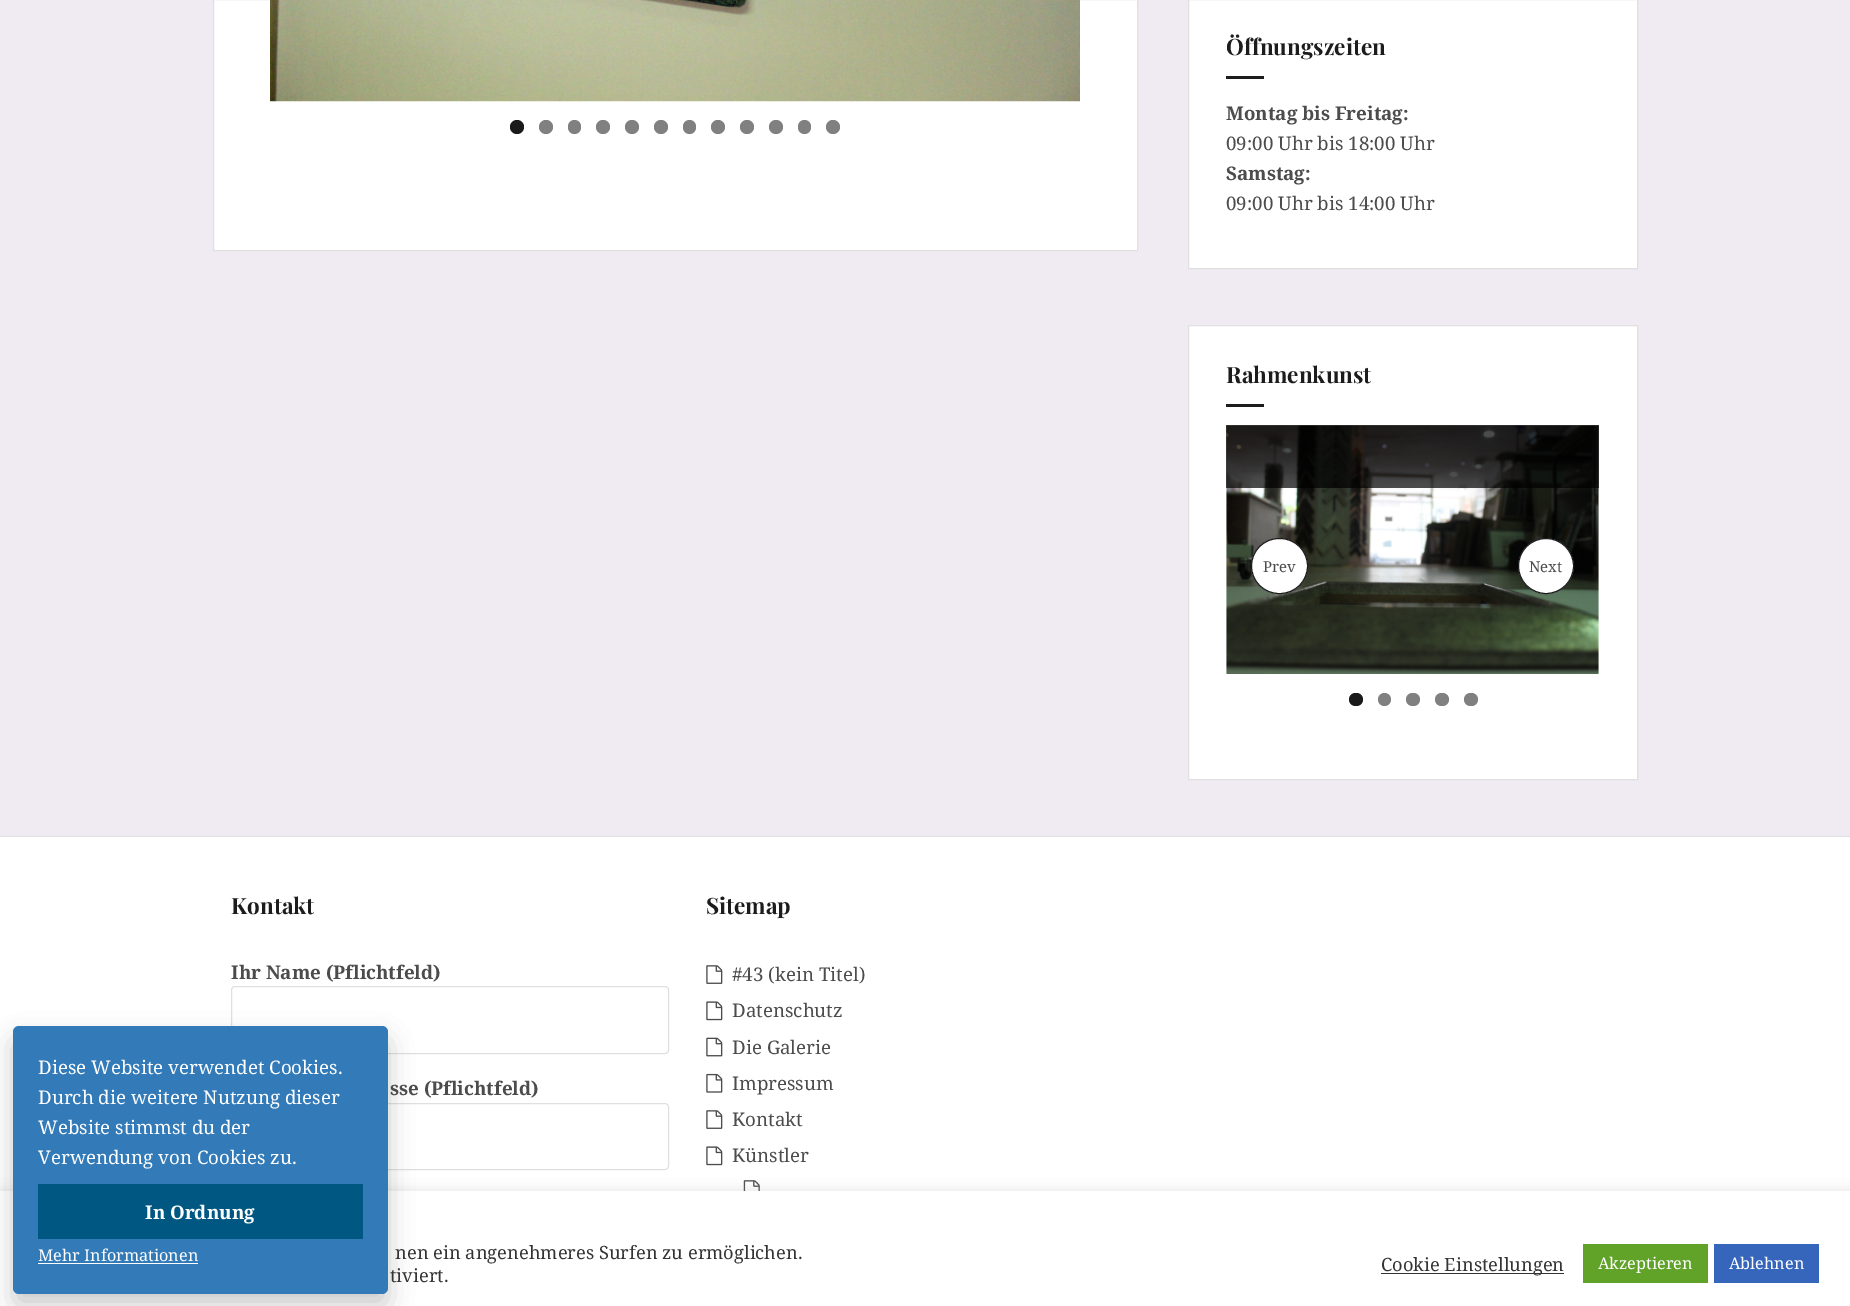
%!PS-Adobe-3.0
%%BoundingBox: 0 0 1850 1306
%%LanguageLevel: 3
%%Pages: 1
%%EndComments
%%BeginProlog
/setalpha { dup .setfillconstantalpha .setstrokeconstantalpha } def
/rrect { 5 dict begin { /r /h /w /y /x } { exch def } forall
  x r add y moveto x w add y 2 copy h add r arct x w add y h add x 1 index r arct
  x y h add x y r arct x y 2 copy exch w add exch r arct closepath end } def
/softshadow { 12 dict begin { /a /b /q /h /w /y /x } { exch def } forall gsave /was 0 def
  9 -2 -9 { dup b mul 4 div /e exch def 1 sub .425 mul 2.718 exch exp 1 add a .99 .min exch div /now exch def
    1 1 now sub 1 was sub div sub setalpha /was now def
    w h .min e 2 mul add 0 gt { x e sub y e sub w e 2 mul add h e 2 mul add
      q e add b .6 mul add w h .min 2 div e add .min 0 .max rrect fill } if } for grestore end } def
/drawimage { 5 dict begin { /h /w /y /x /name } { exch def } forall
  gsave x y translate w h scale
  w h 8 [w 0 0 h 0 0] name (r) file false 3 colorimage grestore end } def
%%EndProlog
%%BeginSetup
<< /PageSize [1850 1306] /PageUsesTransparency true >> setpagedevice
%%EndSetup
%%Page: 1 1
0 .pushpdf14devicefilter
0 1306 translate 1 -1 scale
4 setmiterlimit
0.941 0.918 0.949 setrgbcolor
0 0 1850 1306 rectfill
1 setgray
0 837 1850 354 rectfill
0.878 setgray
231.5 986.5 437 67 3.5 rrect stroke
231.5 1103.5 437 66 3.5 rrect stroke
(images/7.raw) 743 1180 17 11 drawimage
0.675 0.671 0.671 setrgbcolor
0 1190 1850 115 0 6 0.3 softshadow
1 setgray
0 1191 1850 115 rectfill
0 setgray
13 1039 375 267 6 12.5 0.2 softshadow
0.2 0.482 0.722 setrgbcolor
13 1026 375 268 6 rrect fill
0 0.345 0.51 setrgbcolor
38 1184 325 55 rectfill
1 setgray
38 1263 160 1 rectfill
newpath 213.5 -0.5 moveto 1137.5 -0.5 lineto 1137.5 250.5 lineto 213.5 250.5 lineto closepath gsave fill grestore
0.878 setgray
stroke
(images/1.raw) 270 0 810 102 drawimage
0.102 setgray
newpath 517 127 7 0 360 arc closepath fill
0.502 setgray
newpath 546 127 7 0 360 arc closepath fill
568 120 13 14 6.5 rrect fill
newpath 603 127 7 0 360 arc closepath fill
newpath 632 127 7 0 360 arc closepath fill
newpath 661 127 7 0 360 arc closepath fill
683 120 13 14 6.5 rrect fill
newpath 718 127 7 0 360 arc closepath fill
newpath 747 127 7 0 360 arc closepath fill
newpath 776 127 7 0 360 arc closepath fill
798 120 13 14 6.5 rrect fill
newpath 833 127 7 0 360 arc closepath fill
1 setgray
newpath 1188.5 -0.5 moveto 1637.5 -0.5 lineto 1637.5 268.5 lineto 1188.5 268.5 lineto closepath gsave fill grestore
0.878 setgray
stroke
0.11 setgray
1226 76 38 3 rectfill
1 setgray
newpath 1188.5 325.5 moveto 1637.5 325.5 lineto 1637.5 779.5 lineto 1188.5 779.5 lineto closepath gsave fill grestore
0.878 setgray
stroke
0.11 setgray
1226 404 38 3 rectfill
(images/2.raw) 1226 425 373 249 drawimage
0.7 setalpha
0 setgray
1226 425 373 63 rectfill
1 setalpha
1 setgray
1251.5 538.5 56 55 27.5 rrect gsave fill grestore
0.11 setgray
stroke
1 setgray
newpath 1546 566 27.5 0 360 arc closepath gsave fill grestore
0.11 setgray
stroke
0.102 setgray
1349 693 14 13 6.5 rrect fill
0.502 setgray
newpath 1384.5 699.5 6.5 0 360 arc closepath fill
1406 693 14 13 6.5 rrect fill
1435 693 14 13 6.5 rrect fill
1464 693 14 13 6.5 rrect fill
0.878 setgray
0 836 1850 1 rectfill
(images/3.raw) 706 965 17 19 drawimage
(images/4.raw) 706 1001 17 20 drawimage
(images/5.raw) 706 1037 17 20 drawimage
(images/6.raw) 706 1073 17 20 drawimage
(images/3.raw) 706 1110 17 19 drawimage
(images/4.raw) 706 1146 17 20 drawimage
0.2 setgray
1381 1273 183 1 rectfill
0.38 0.635 0.161 setrgbcolor
1583 1244 125 39 rectfill
0.208 0.4 0.733 setrgbcolor
1714 1244 105 39 rectfill
/NotoSerif-Regular [18.75 0 0 -18.75 0 0] selectfont
1 setgray
38 1074 moveto (Diese Website verwendet Cookies.) show
38 1104 moveto (Durch die weitere Nutzung dieser) show
38 1134 moveto (Website stimmst du der) show
38 1164 moveto (Verwendung von Cookies zu.) show
/NotoSerif-Bold [18.75 0 0 -18.75 0 0] selectfont
145 1219 moveto (In Ordnung) show
/NotoSerif-Regular [16.25 0 0 -16.25 0 0] selectfont
38 1261 moveto (Mehr Informationen) show
/PlayfairDisplay-Bold [22.5 0 0 -22.5 0 0] selectfont
0.11 setgray
1226 55 moveto (Öffnungszeiten) show
/NotoSerif-Bold [18.75 0 0 -18.75 0 0] selectfont
0.298 setgray
1226 120 moveto (Montag bis Freitag:) show
/NotoSerif-Regular [18.75 0 0 -18.75 0 0] selectfont
1226 150 moveto (09:00 Uhr bis 18:00 Uhr) show
/NotoSerif-Bold [18.75 0 0 -18.75 0 0] selectfont
1226 180 moveto (Samstag:) show
/NotoSerif-Regular [18.75 0 0 -18.75 0 0] selectfont
1226 210 moveto (09:00 Uhr bis 14:00 Uhr) show
/PlayfairDisplay-Bold [22.5 0 0 -22.5 0 0] selectfont
0.11 setgray
1226 383 moveto (Rahmenkunst) show
/NotoSerif-Regular [15 0 0 -15 0 0] selectfont
0.298 setgray
1263 572 moveto (Prev) show
1529 572 moveto (Next) show
/PlayfairDisplay-Bold [22.5 0 0 -22.5 0 0] selectfont
0.11 setgray
231 914 moveto (Kontakt) show
/NotoSerif-Bold [18.75 0 0 -18.75 0 0] selectfont
0.298 setgray
231 979 moveto (Ihr Name \(Pflichtfeld\)) show
390 1095 moveto (sse \(Pflichtfeld\)) show
/PlayfairDisplay-Bold [22.5 0 0 -22.5 0 0] selectfont
0.11 setgray
706 914 moveto (Sitemap) show
/NotoSerif-Regular [18.75 0 0 -18.75 0 0] selectfont
0.298 setgray
732 981 moveto (#43 \(kein Titel\)) show
732 1017 moveto (Datenschutz) show
732 1054 moveto (Die Galerie) show
732 1090 moveto (Impressum) show
732 1126 moveto (Kontakt) show
732 1162 moveto (Künstler) show
/NotoSerif-Regular [18.3 0 0 -18.3 0 0] selectfont
0.2 setgray
395 1259 moveto (nen ein angenehmeres Surfen zu ermöglichen.) show
390 1282 moveto (tiviert.) show
1381 1271 moveto (Cookie Einstellungen) show
/NotoSerif-Regular [16.25 0 0 -16.25 0 0] selectfont
1 setgray
1598 1269 moveto (Akzeptieren) show
1729 1269 moveto (Ablehnen) show
.poppdf14devicefilter showpage
%%EOF
